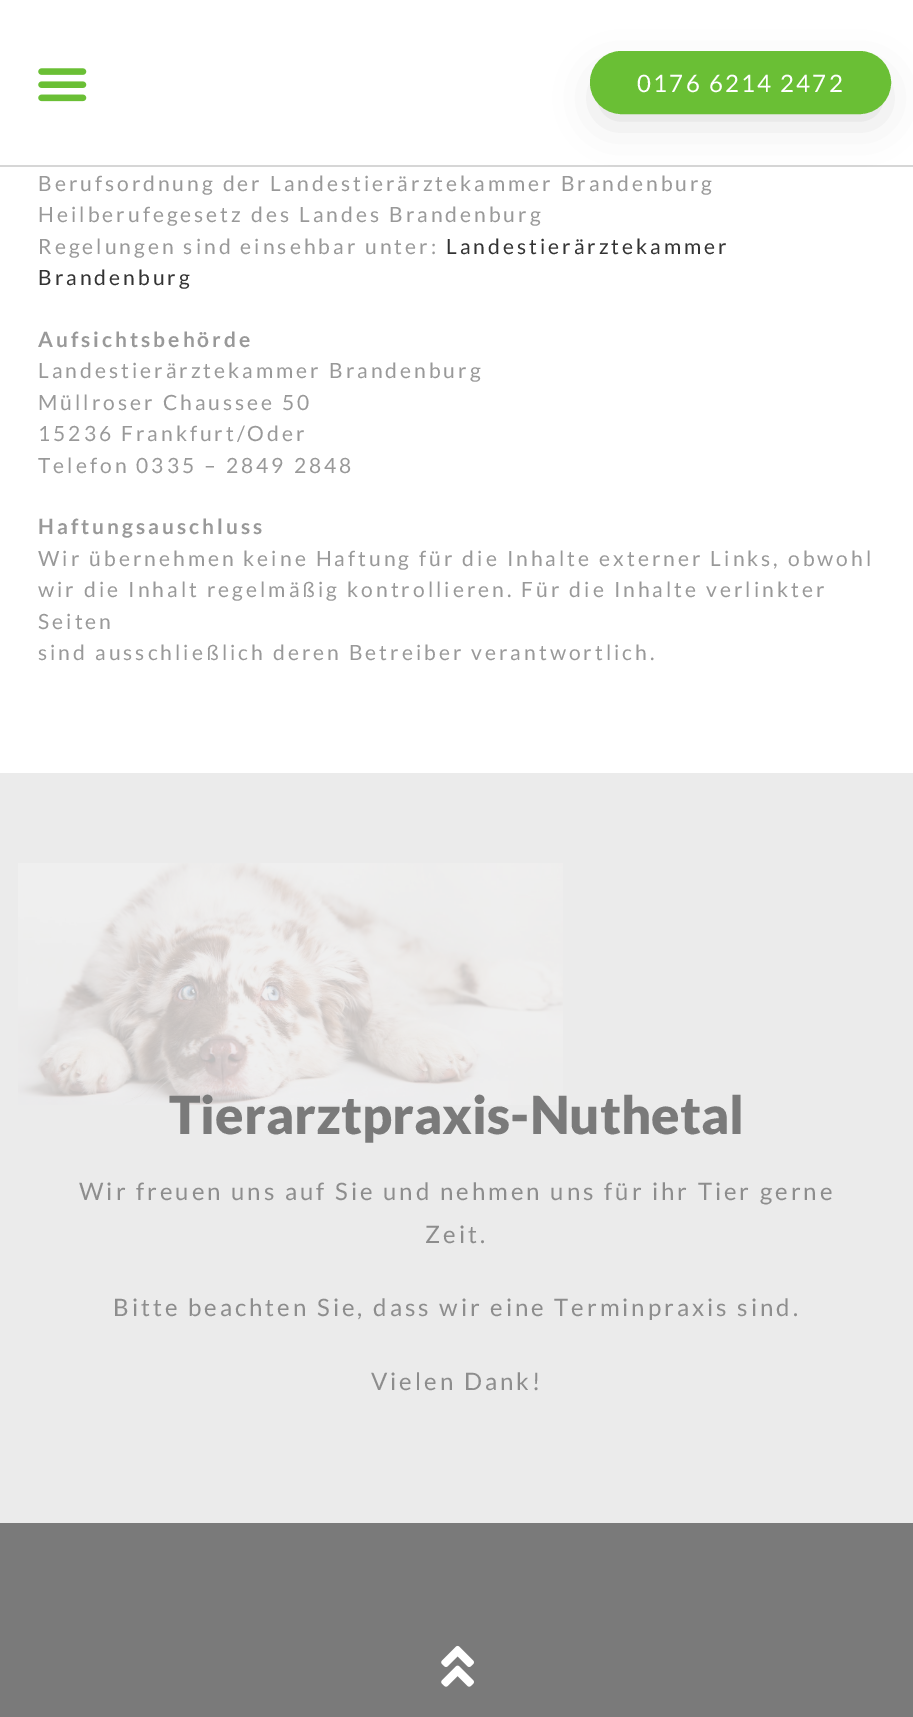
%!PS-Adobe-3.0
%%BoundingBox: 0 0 913 1717
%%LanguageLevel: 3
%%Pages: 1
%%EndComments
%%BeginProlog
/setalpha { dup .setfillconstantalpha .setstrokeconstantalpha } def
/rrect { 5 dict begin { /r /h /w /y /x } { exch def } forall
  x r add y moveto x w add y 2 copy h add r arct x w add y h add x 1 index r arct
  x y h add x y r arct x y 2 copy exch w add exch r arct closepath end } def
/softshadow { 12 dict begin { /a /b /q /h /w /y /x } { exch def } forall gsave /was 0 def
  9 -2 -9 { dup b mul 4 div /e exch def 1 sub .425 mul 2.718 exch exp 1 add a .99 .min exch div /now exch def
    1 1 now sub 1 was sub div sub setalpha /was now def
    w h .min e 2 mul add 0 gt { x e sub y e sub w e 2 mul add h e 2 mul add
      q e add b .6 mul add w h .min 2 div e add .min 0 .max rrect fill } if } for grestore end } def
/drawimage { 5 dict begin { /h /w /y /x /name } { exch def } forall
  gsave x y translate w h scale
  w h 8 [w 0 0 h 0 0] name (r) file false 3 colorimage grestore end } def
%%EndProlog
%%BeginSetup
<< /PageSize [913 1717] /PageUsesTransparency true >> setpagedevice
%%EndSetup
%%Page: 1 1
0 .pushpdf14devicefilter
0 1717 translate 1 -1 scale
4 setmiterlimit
1 setgray
0 0 913 1717 rectfill
0.839 setgray
0 165 913 2 rectfill
(images/1.raw) 38 68 49 34 drawimage
0 setgray
603 80 275 36 18 22.5 0.16 softshadow
0.416 0.749 0.208 setrgbcolor
591 52 299 61 30.5 rrect gsave fill grestore
2 setlinewidth
stroke
0.922 setgray
0 773 913 750 rectfill
(images/2.raw) 18 863 545 242 drawimage
0.478 setgray
0 1523 913 194 rectfill
(images/3.raw) 441 1645 33 42 drawimage
/Lato-Regular [24 0 0 -24 0 0] selectfont
1 setgray
637 92 moveto 2.25 0 (0176 6214 2472) ashow
/Lato-Regular [21 0 0 -21 0 0] selectfont
0.6 setgray
38 191 moveto 3 0 (Berufsordnung der Landestierärztekammer Brandenburg) ashow
38 222 moveto 3 0 (Heilberufegesetz des Landes Brandenburg) ashow
38 254 moveto 3 0 (Regelungen sind einsehbar unter:) ashow
0.2 setgray
446 254 moveto 3 0 (Landestierärztekammer) ashow
38 285 moveto 3 0 (Brandenburg) ashow
/Lato-Bold [21 0 0 -21 0 0] selectfont
0.6 setgray
38 347 moveto 3 0 (Aufsichtsbehörde) ashow
/Lato-Regular [21 0 0 -21 0 0] selectfont
38 378 moveto 3 0 (Landestierärztekammer Brandenburg) ashow
38 410 moveto 3 0 (Müllroser Chaussee 50) ashow
38 441 moveto 3 0 (15236 Frankfurt/Oder) ashow
38 473 moveto 3 0 (Telefon 0335 – 2849 2848) ashow
/Lato-Bold [21 0 0 -21 0 0] selectfont
38 534 moveto 3 0 (Haftungsauschluss) ashow
/Lato-Regular [21 0 0 -21 0 0] selectfont
38 566 moveto 3 0 (Wir übernehmen keine Haftung für die Inhalte externer Links, obwohl) ashow
38 597 moveto 3 0 (wir die Inhalt regelmäßig kontrollieren. Für die Inhalte verlinkter) ashow
38 629 moveto 3 0 (Seiten) ashow
38 660 moveto 3 0 (sind ausschließlich deren Betreiber verantwortlich.) ashow
/Lato-Black [52.5 0 0 -52.5 0 0] selectfont
0.478 setgray
169 1134 moveto (Tierarztpraxis-Nuthetal) show
/Lato-Regular [24 0 0 -24 0 0] selectfont
0.553 setgray
79 1200 moveto 3 0 (Wir freuen uns auf Sie und nehmen uns für ihr Tier gerne) ashow
425 1243 moveto 3 0 (Zeit.) ashow
113 1316 moveto 3 0 (Bitte beachten Sie, dass wir eine Terminpraxis sind.) ashow
371 1390 moveto 3 0 (Vielen Dank!) ashow
.poppdf14devicefilter showpage
%%EOF
